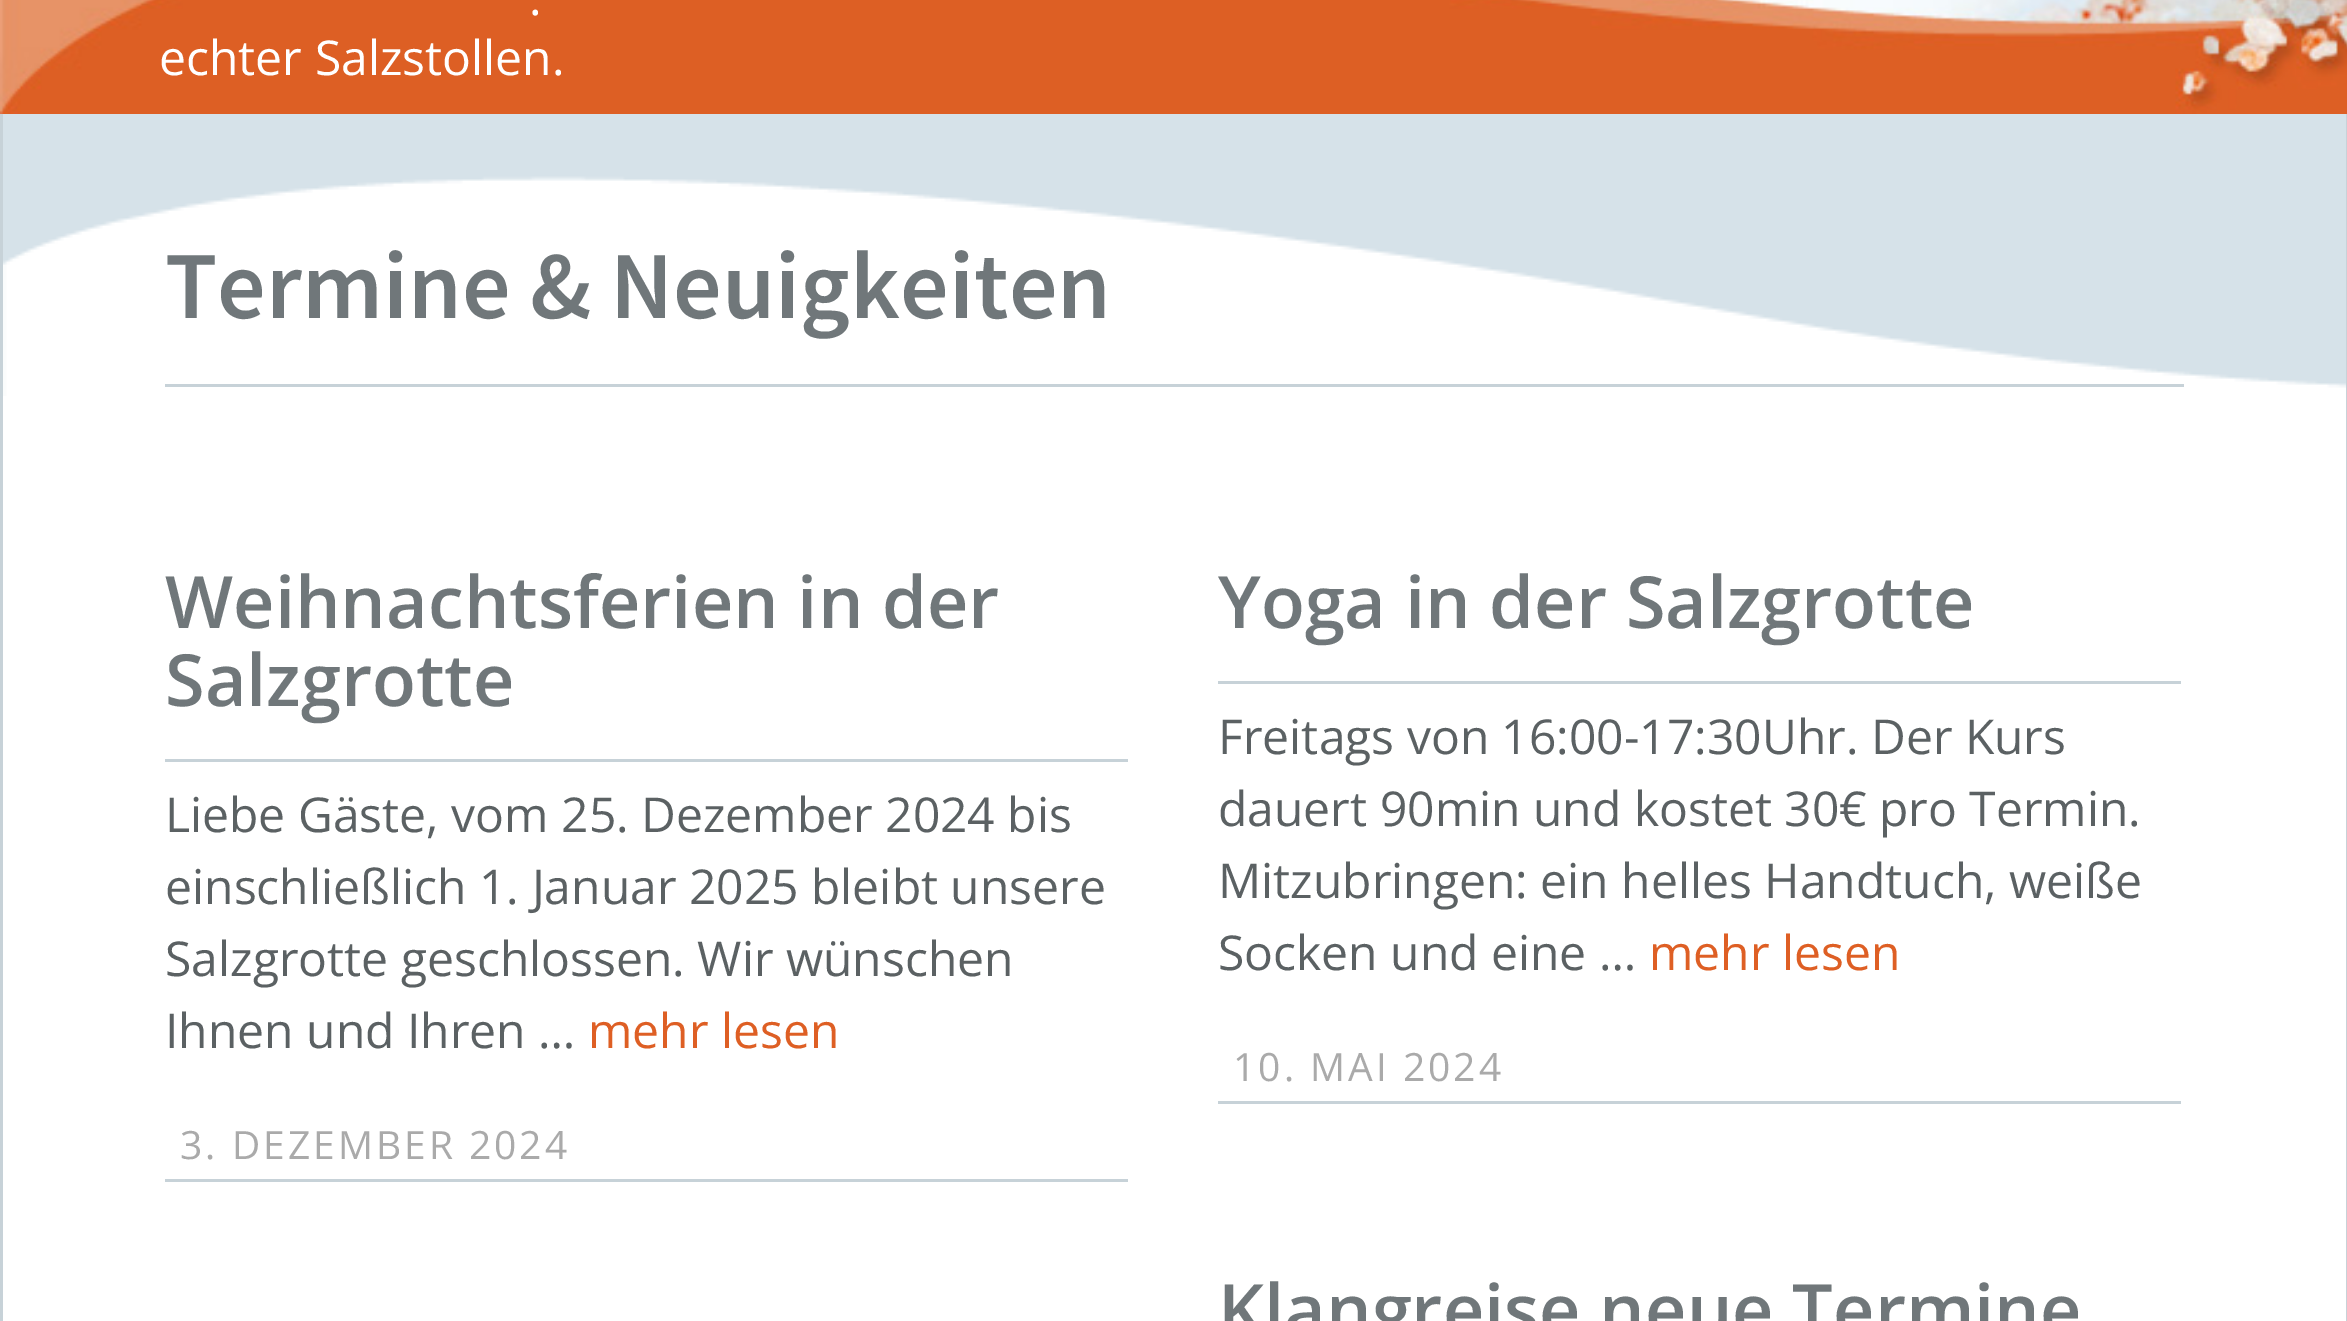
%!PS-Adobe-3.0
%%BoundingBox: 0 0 2347 1321
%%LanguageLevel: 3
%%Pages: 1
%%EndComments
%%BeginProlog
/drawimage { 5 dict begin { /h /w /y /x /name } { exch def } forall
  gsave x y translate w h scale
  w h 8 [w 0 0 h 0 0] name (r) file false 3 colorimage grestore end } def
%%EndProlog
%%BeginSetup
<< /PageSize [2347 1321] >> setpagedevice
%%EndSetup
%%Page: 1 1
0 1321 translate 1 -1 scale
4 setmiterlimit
1 setgray
0 0 2347 1321 rectfill
(images/1.raw) 0 0 2347 114 drawimage
(images/2.raw) 3 114 2343 282 drawimage
0.78 0.824 0.847 setrgbcolor
2346 114 1 1207 rectfill
0 114 3 1207 rectfill
165 384 2019 3 rectfill
165 759 963 3 rectfill
165 1179 963 3 rectfill
1218 681 963 3 rectfill
1218 1101 963 3 rectfill
/OpenSans-Regular [48 0 0 -48 0 0] selectfont
1 setgray
529 15 moveto (.) show
159 75 moveto (echter Salzstollen.) show
/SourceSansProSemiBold-SemiBold [96 0 0 -96 0 0] selectfont
0.439 0.467 0.478 setrgbcolor
165 318 moveto (Termine & Neuigkeiten) show
/OpenSans-SemiBold [72 0 0 -72 0 0] selectfont
165 628 moveto (Weihnachtsferien in der) show
165 706 moveto (Salzgrotte) show
/OpenSans-Regular [48 0 0 -48 0 0] selectfont
0.357 0.38 0.388 setrgbcolor
165 832 moveto (Liebe Gäste, vom 25. Dezember 2024 bis) show
165 904 moveto (einschließlich 1. Januar 2025 bleibt unsere) show
165 976 moveto (Salzgrotte geschlossen. Wir wünschen) show
165 1048 moveto (Ihnen und Ihren …) show
0.871 0.373 0.141 setrgbcolor
588 1048 moveto (mehr lesen) show
/OpenSans-Regular [39 0 0 -39 0 0] selectfont
0.667 setgray
180 1159 moveto 3 0 (3. DEZEMBER 2024) ashow
/OpenSans-SemiBold [72 0 0 -72 0 0] selectfont
0.439 0.467 0.478 setrgbcolor
1218 628 moveto (Yoga in der Salzgrotte) show
/OpenSans-Regular [48 0 0 -48 0 0] selectfont
0.357 0.38 0.388 setrgbcolor
1218 754 moveto (Freitags von 16:00-17:30Uhr. Der Kurs) show
1218 826 moveto (dauert 90min und kostet 30€ pro Termin.) show
1218 898 moveto (Mitzubringen: ein helles Handtuch, weiße) show
1218 970 moveto (Socken und eine …) show
0.871 0.373 0.141 setrgbcolor
1649 970 moveto (mehr lesen) show
/OpenSans-Regular [39 0 0 -39 0 0] selectfont
0.667 setgray
1233 1081 moveto 3 0 (10. MAI 2024) ashow
/OpenSans-SemiBold [72 0 0 -72 0 0] selectfont
0.439 0.467 0.478 setrgbcolor
1218 1336 moveto (Klangreise neue Termine) show
showpage
%%EOF
